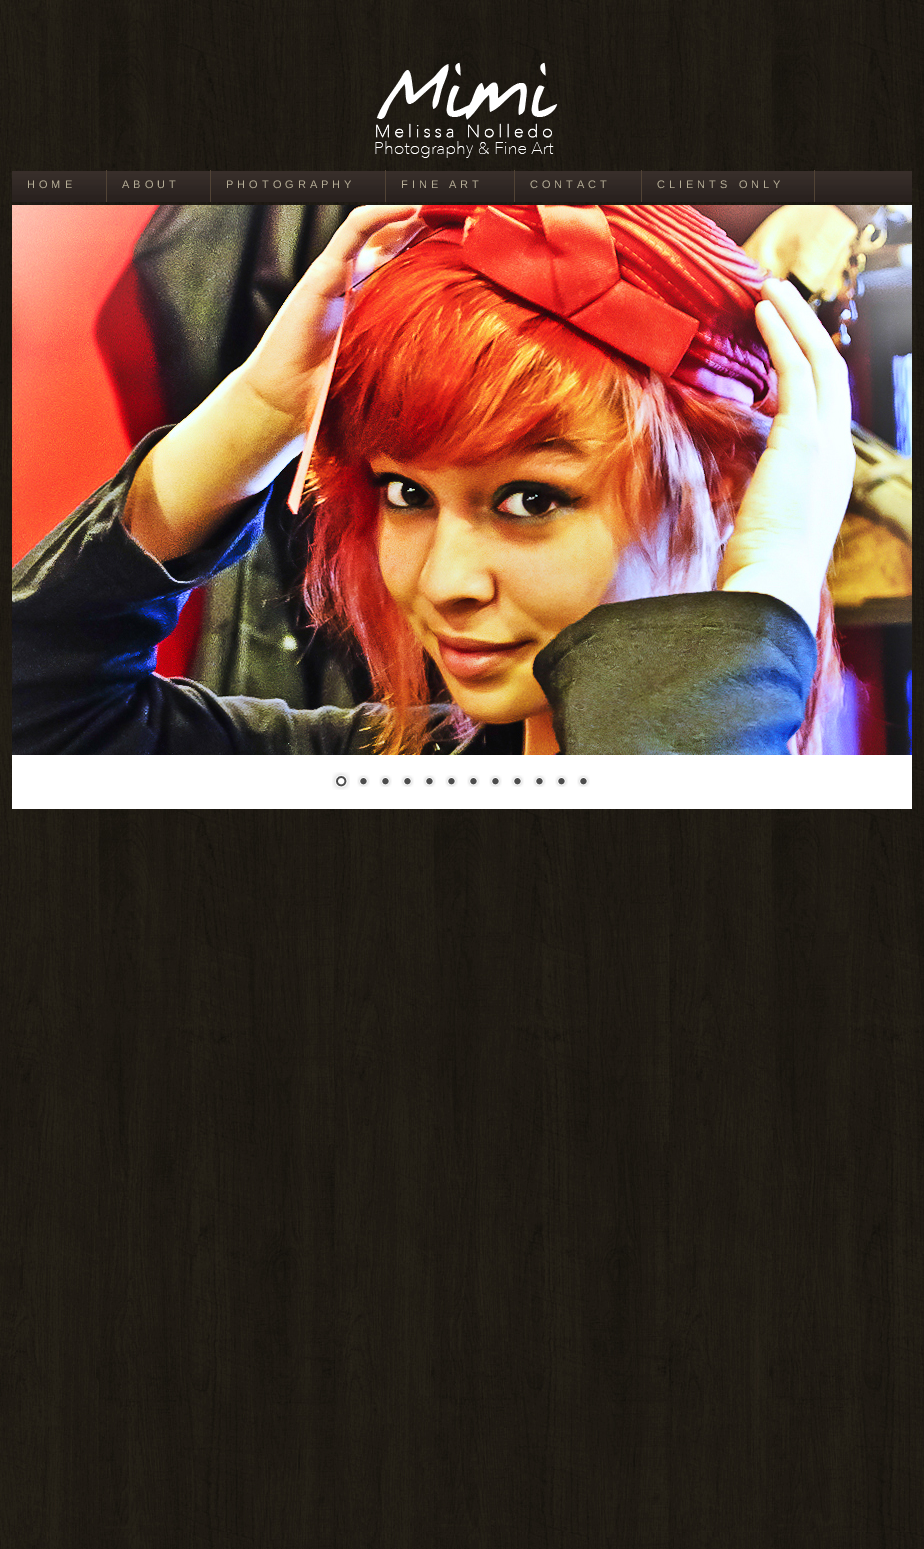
%!PS-Adobe-3.0
%%BoundingBox: 0 0 924 1549
%%LanguageLevel: 3
%%Pages: 1
%%EndComments
%%BeginProlog
/drawimage { 5 dict begin { /h /w /y /x /name } { exch def } forall
  gsave x y translate w h scale
  w h 8 [w 0 0 h 0 0] name (r) file false 3 colorimage grestore end } def
%%EndProlog
%%BeginSetup
<< /PageSize [924 1549] >> setpagedevice
%%EndSetup
%%Page: 1 1
0 1549 translate 1 -1 scale
4 setmiterlimit
1 setgray
0 0 924 1549 rectfill
(images/1.raw) 0 0 924 1549 drawimage
(images/2.raw) 375 62 183 96 drawimage
(images/3.raw) 12 171 900 31 drawimage
0.318 0.263 0.208 setrgbcolor
106 170 1 32 rectfill
210 170 1 32 rectfill
385 170 1 32 rectfill
514 170 1 32 rectfill
641 170 1 32 rectfill
814 170 1 32 rectfill
1 setgray
12 755 900 54 rectfill
(images/4.raw) 12 205 900 550 drawimage
(images/5.raw) 332 772 18 18 drawimage
(images/6.raw) 357 775 13 12 drawimage
(images/6.raw) 379 775 13 12 drawimage
(images/6.raw) 401 775 13 12 drawimage
(images/6.raw) 423 775 13 12 drawimage
(images/6.raw) 445 775 13 12 drawimage
(images/6.raw) 467 775 13 12 drawimage
(images/6.raw) 489 775 13 12 drawimage
(images/6.raw) 511 775 13 12 drawimage
(images/6.raw) 533 775 13 12 drawimage
(images/6.raw) 555 775 13 12 drawimage
(images/6.raw) 577 775 13 12 drawimage
/LiberationSans-Regular [11 0 0 -11 0 0] selectfont
0.714 0.682 0.592 setrgbcolor
27 188 moveto 4 0 (HOME) ashow
122 188 moveto 4 0 (ABOUT) ashow
226 188 moveto 4 0 (PHOTOGRAPHY) ashow
401 188 moveto 4 0 (FINE ART) ashow
530 188 moveto 4 0 (CONTACT) ashow
657 188 moveto 4 0 (CLIENTS ONLY) ashow
showpage
%%EOF
